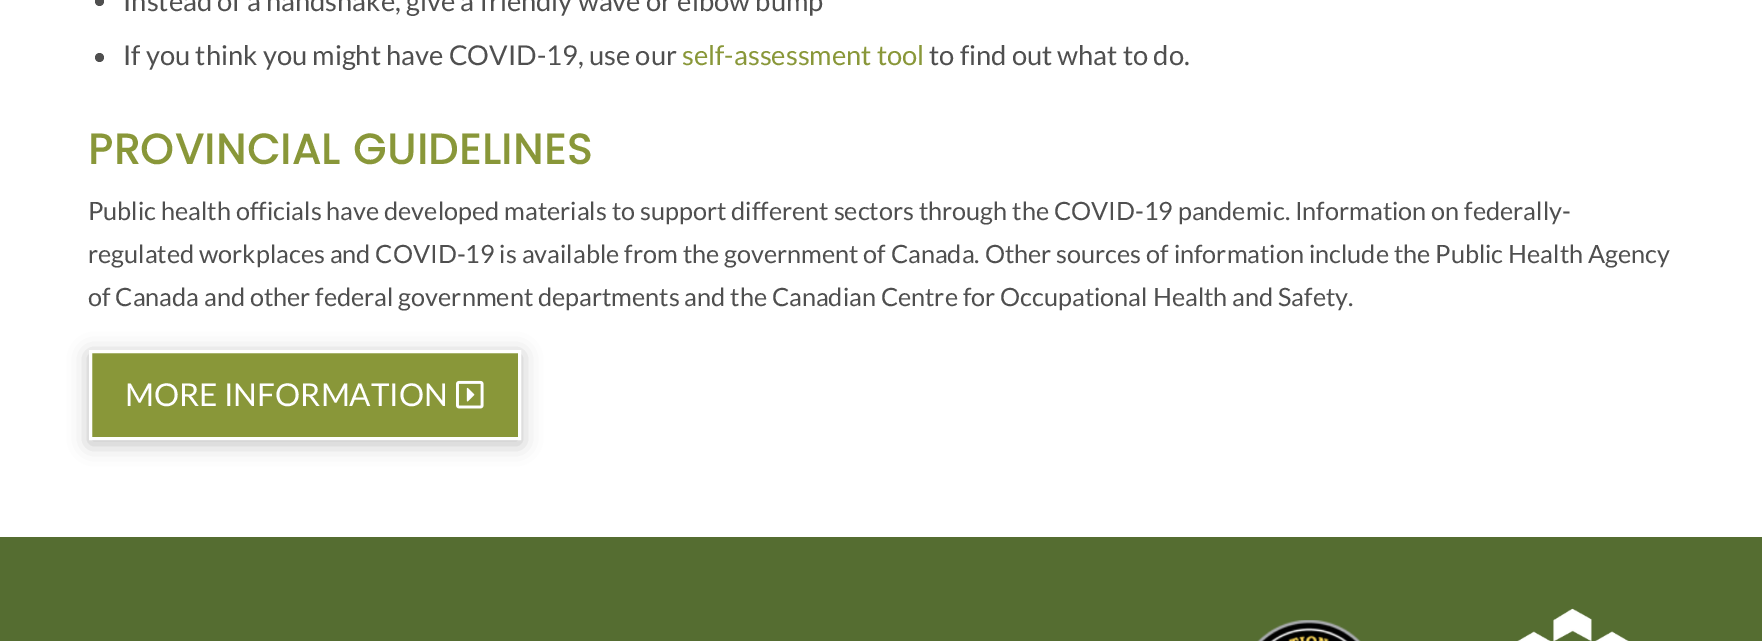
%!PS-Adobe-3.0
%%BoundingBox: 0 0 1762 641
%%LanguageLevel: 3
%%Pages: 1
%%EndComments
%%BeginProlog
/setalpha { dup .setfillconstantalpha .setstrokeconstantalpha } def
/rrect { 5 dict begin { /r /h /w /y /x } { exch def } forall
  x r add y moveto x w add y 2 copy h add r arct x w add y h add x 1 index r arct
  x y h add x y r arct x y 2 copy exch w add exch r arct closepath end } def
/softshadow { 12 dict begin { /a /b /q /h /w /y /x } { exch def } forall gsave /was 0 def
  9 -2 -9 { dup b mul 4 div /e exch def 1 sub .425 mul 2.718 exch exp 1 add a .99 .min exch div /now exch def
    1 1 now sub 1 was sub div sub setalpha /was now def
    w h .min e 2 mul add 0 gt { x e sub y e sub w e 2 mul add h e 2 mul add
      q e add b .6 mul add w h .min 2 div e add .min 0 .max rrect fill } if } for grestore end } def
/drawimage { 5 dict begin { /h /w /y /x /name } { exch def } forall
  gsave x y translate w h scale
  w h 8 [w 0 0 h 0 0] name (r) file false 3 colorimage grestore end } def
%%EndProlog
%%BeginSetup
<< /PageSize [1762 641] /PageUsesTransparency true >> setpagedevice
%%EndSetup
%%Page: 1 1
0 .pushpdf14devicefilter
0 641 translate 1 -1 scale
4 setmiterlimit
1 setgray
0 0 1762 641 rectfill
0.31 setgray
newpath 99.5 1.5 4.5 0 360 arc closepath fill
newpath 99.5 57.5 4.5 0 360 arc closepath fill
0 setgray
89 354 432 90 0 10 0.25 softshadow
0.537 0.592 0.224 setrgbcolor
newpath 90.5 351.5 moveto 519.5 351.5 lineto 519.5 438.5 lineto 90.5 438.5 lineto closepath gsave fill grestore
1 setgray
3 setlinewidth
stroke
(images/1.raw) 456 380 28 29 drawimage
0.333 0.427 0.192 setrgbcolor
0 537 1762 104 rectfill
(images/2.raw) 1257 620 104 21 drawimage
(images/3.raw) 1517 608 112 33 drawimage
/Lato-Regular [27.3 0 0 -27.3 0 0] selectfont
0.31 setgray
123 11 moveto (Instead of a handshake, give a friendly wave or elbow bump) show
123 65 moveto (If you think you might have COVID-19, use our) show
0.537 0.592 0.224 setrgbcolor
682 65 moveto (self-assessment tool) show
0.31 setgray
929 65 moveto (to find out what to do.) show
/Poppins-Bold [42 0 0 -42 0 0] selectfont
0.537 0.592 0.224 setrgbcolor
88 164 moveto 1.25 0 (PROVINCIAL GUIDELINES) ashow
/Lato-Regular [25.2 0 0 -25.2 0 0] selectfont
0.31 setgray
88 220 moveto (Public health officials have developed materials to support different sectors through the COVID-19 pandemic. Information on federally-) show
88 263 moveto (regulated workplaces and COVID-19 is available from the government of Canada. Other sources of information include the Public Health Agency) show
88 306 moveto (of Canada and other federal government departments and the Canadian Centre for Occupational Health and Safety.) show
/Lato-Regular [31.5 0 0 -31.5 0 0] selectfont
1 setgray
125 406 moveto (MORE INFORMATION) show
.poppdf14devicefilter showpage
%%EOF
